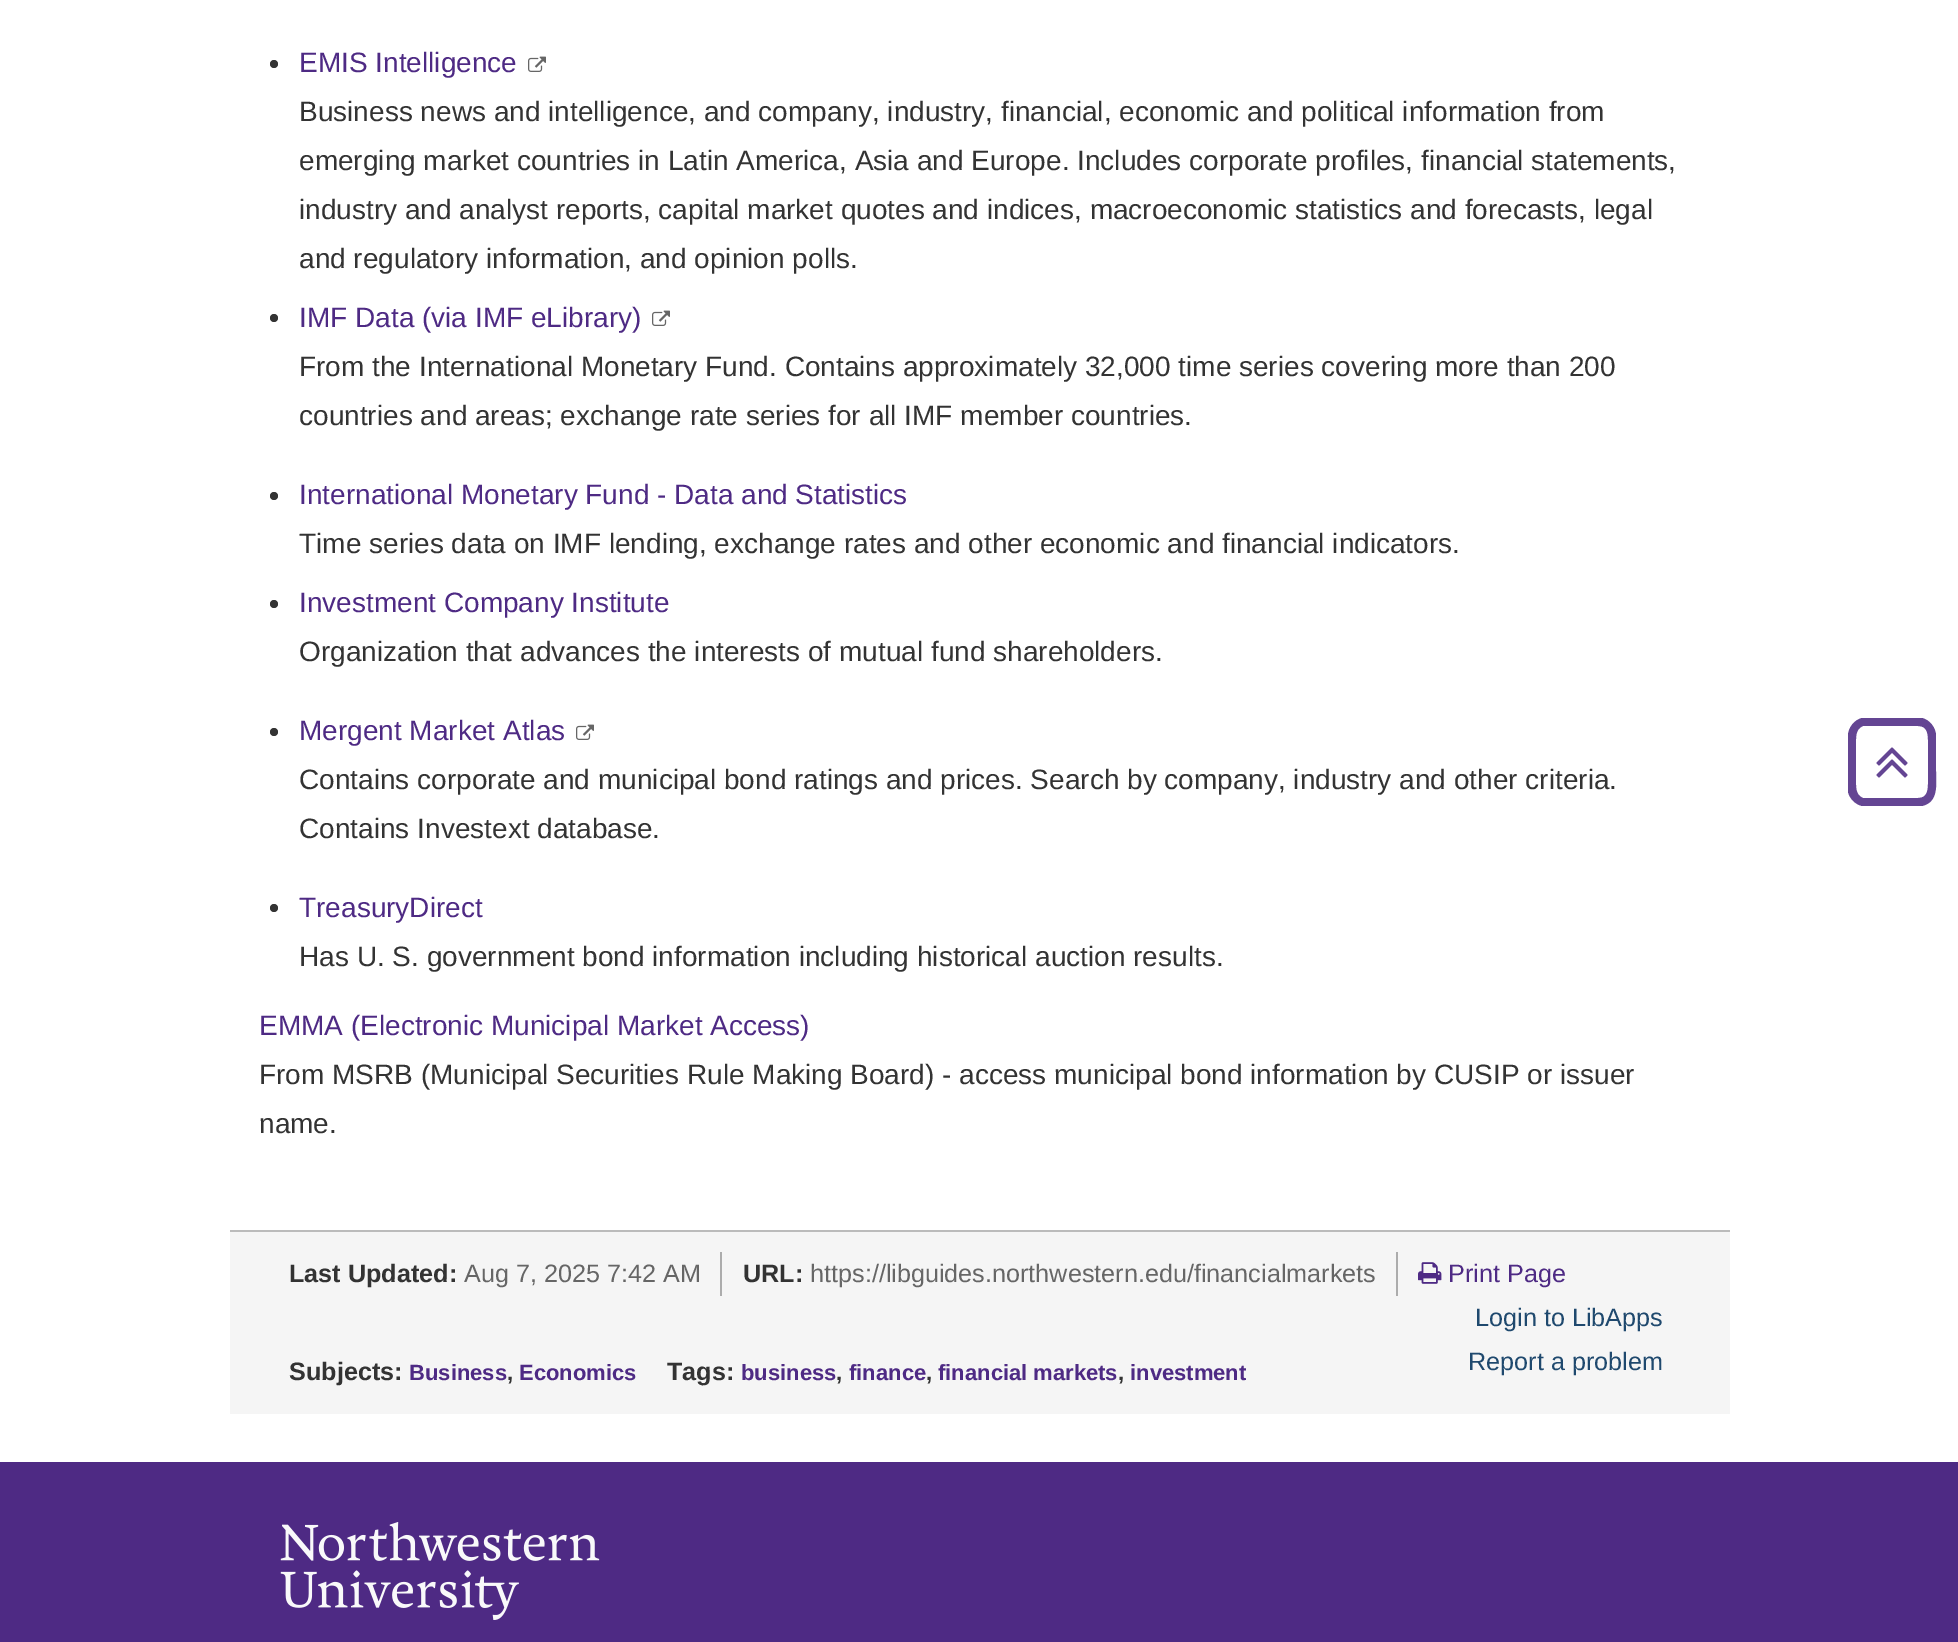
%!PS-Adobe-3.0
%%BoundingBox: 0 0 1958 1642
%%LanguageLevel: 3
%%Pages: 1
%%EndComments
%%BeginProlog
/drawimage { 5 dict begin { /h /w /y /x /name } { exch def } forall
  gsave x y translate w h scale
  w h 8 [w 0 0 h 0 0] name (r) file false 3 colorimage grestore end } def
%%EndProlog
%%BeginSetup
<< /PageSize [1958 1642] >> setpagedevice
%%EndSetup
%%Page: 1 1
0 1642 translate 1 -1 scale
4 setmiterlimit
1 setgray
0 0 1958 1642 rectfill
0.2 setgray
newpath 274 64 4 0 360 arc closepath fill
(images/1.raw) 528 56 18 16 drawimage
newpath 274 318 4 0 360 arc closepath fill
(images/1.raw) 652 310 18 16 drawimage
newpath 274 496 4 0 360 arc closepath fill
newpath 274 604 4 0 360 arc closepath fill
newpath 274 732 4 0 360 arc closepath fill
(images/1.raw) 576 724 18 16 drawimage
newpath 274 908 4 0 360 arc closepath fill
0.392 0.271 0.576 setrgbcolor
newpath 1918 726 moveto 1863 726 lineto 1855 729 1856 738 1856 745 curveto 1856 779 lineto 1856 786 1855 795 1863 798 curveto 1918 798 lineto 1929 798 1928 787 1928 779 curveto 1928 745 lineto 1928 737 1929 726 1918 726 curveto closepath 1936 736 moveto 1936 771 lineto 1936 784 1939 802 1922 806 curveto 1862 806 lineto 1855 804 1850 799 1848 792 curveto 1848 736 lineto 1848 728 1854 720 1862 718 curveto 1922 718 lineto 1930 720 1936 728 1936 736 curveto closepath fill
(images/2.raw) 1876 747 32 31 drawimage
0.961 setgray
230 1232 1500 182 rectfill
0.733 setgray
230 1230 1500 2 rectfill
0.675 setgray
720 1252 2 44 rectfill
1396 1252 2 44 rectfill
(images/3.raw) 1418 1262 24 22 drawimage
0.306 0.165 0.518 setrgbcolor
0 1462 1958 180 rectfill
(images/4.raw) 280 1522 320 98 drawimage
/LiberationSans-Regular [28 0 0 -28 0 0] selectfont
299 72 moveto (EMIS Intelligence) show
0.2 setgray
299 121 moveto (Business news and intelligence, and company, industry, financial, economic and political information from) show
299 170 moveto (emerging market countries in Latin America, Asia and Europe. Includes corporate profiles, financial statements,) show
299 219 moveto (industry and analyst reports, capital market quotes and indices, macroeconomic statistics and forecasts, legal) show
299 268 moveto (and regulatory information, and opinion polls.) show
0.306 0.165 0.518 setrgbcolor
299 327 moveto (IMF Data \(via IMF eLibrary\)) show
0.2 setgray
299 376 moveto (From the International Monetary Fund. Contains approximately 32,000 time series covering more than 200) show
299 425 moveto (countries and areas; exchange rate series for all IMF member countries.) show
0.306 0.165 0.518 setrgbcolor
299 504 moveto (International Monetary Fund - Data and Statistics) show
0.2 setgray
299 553 moveto (Time series data on IMF lending, exchange rates and other economic and financial indicators.) show
0.306 0.165 0.518 setrgbcolor
299 612 moveto (Investment Company Institute) show
0.2 setgray
299 661 moveto (Organization that advances the interests of mutual fund shareholders.) show
0.306 0.165 0.518 setrgbcolor
299 740 moveto (Mergent Market Atlas) show
0.2 setgray
299 789 moveto (Contains corporate and municipal bond ratings and prices. Search by company, industry and other criteria.) show
299 838 moveto (Contains Investext database.) show
0.306 0.165 0.518 setrgbcolor
299 917 moveto (TreasuryDirect) show
0.2 setgray
299 966 moveto (Has U. S. government bond information including historical auction results.) show
0.306 0.165 0.518 setrgbcolor
259 1035 moveto (EMMA \(Electronic Municipal Market Access\)) show
0.2 setgray
259 1084 moveto (From MSRB \(Municipal Securities Rule Making Board\) - access municipal bond information by CUSIP or issuer) show
259 1133 moveto (name.) show
/LiberationSans-Bold [25.2 0 0 -25.2 0 0] selectfont
289 1282 moveto (Last Updated:) show
/LiberationSans-Regular [25.2 0 0 -25.2 0 0] selectfont
0.4 setgray
464 1282 moveto (Aug 7, 2025 7:42 AM) show
/LiberationSans-Bold [25.2 0 0 -25.2 0 0] selectfont
0.2 setgray
743 1282 moveto (URL:) show
/LiberationSans-Regular [25.2 0 0 -25.2 0 0] selectfont
0.4 setgray
810 1282 moveto (https://libguides.northwestern.edu/financialmarkets) show
0.306 0.165 0.518 setrgbcolor
1448 1282 moveto (Print Page) show
0.122 0.286 0.431 setrgbcolor
1475 1326 moveto (Login to LibApps) show
/LiberationSans-Bold [25.2 0 0 -25.2 0 0] selectfont
0.2 setgray
289 1380 moveto (Subjects:) show
/LiberationSans-Bold [22 0 0 -22 0 0] selectfont
0.306 0.165 0.518 setrgbcolor
409 1380 moveto (Business) show
0.2 setgray
507 1380 moveto (,) show
0.306 0.165 0.518 setrgbcolor
519 1380 moveto (Economics) show
/LiberationSans-Bold [25.2 0 0 -25.2 0 0] selectfont
0.2 setgray
667 1380 moveto (Tags:) show
/LiberationSans-Bold [22 0 0 -22 0 0] selectfont
0.306 0.165 0.518 setrgbcolor
741 1380 moveto (business) show
0.2 setgray
836 1380 moveto (,) show
0.306 0.165 0.518 setrgbcolor
849 1380 moveto (finance) show
0.2 setgray
926 1380 moveto (,) show
0.306 0.165 0.518 setrgbcolor
938 1380 moveto (financial markets) show
0.2 setgray
1118 1380 moveto (,) show
0.306 0.165 0.518 setrgbcolor
1130 1380 moveto (investment) show
/LiberationSans-Regular [25.2 0 0 -25.2 0 0] selectfont
0.122 0.286 0.431 setrgbcolor
1468 1370 moveto (Report a problem) show
showpage
%%EOF
